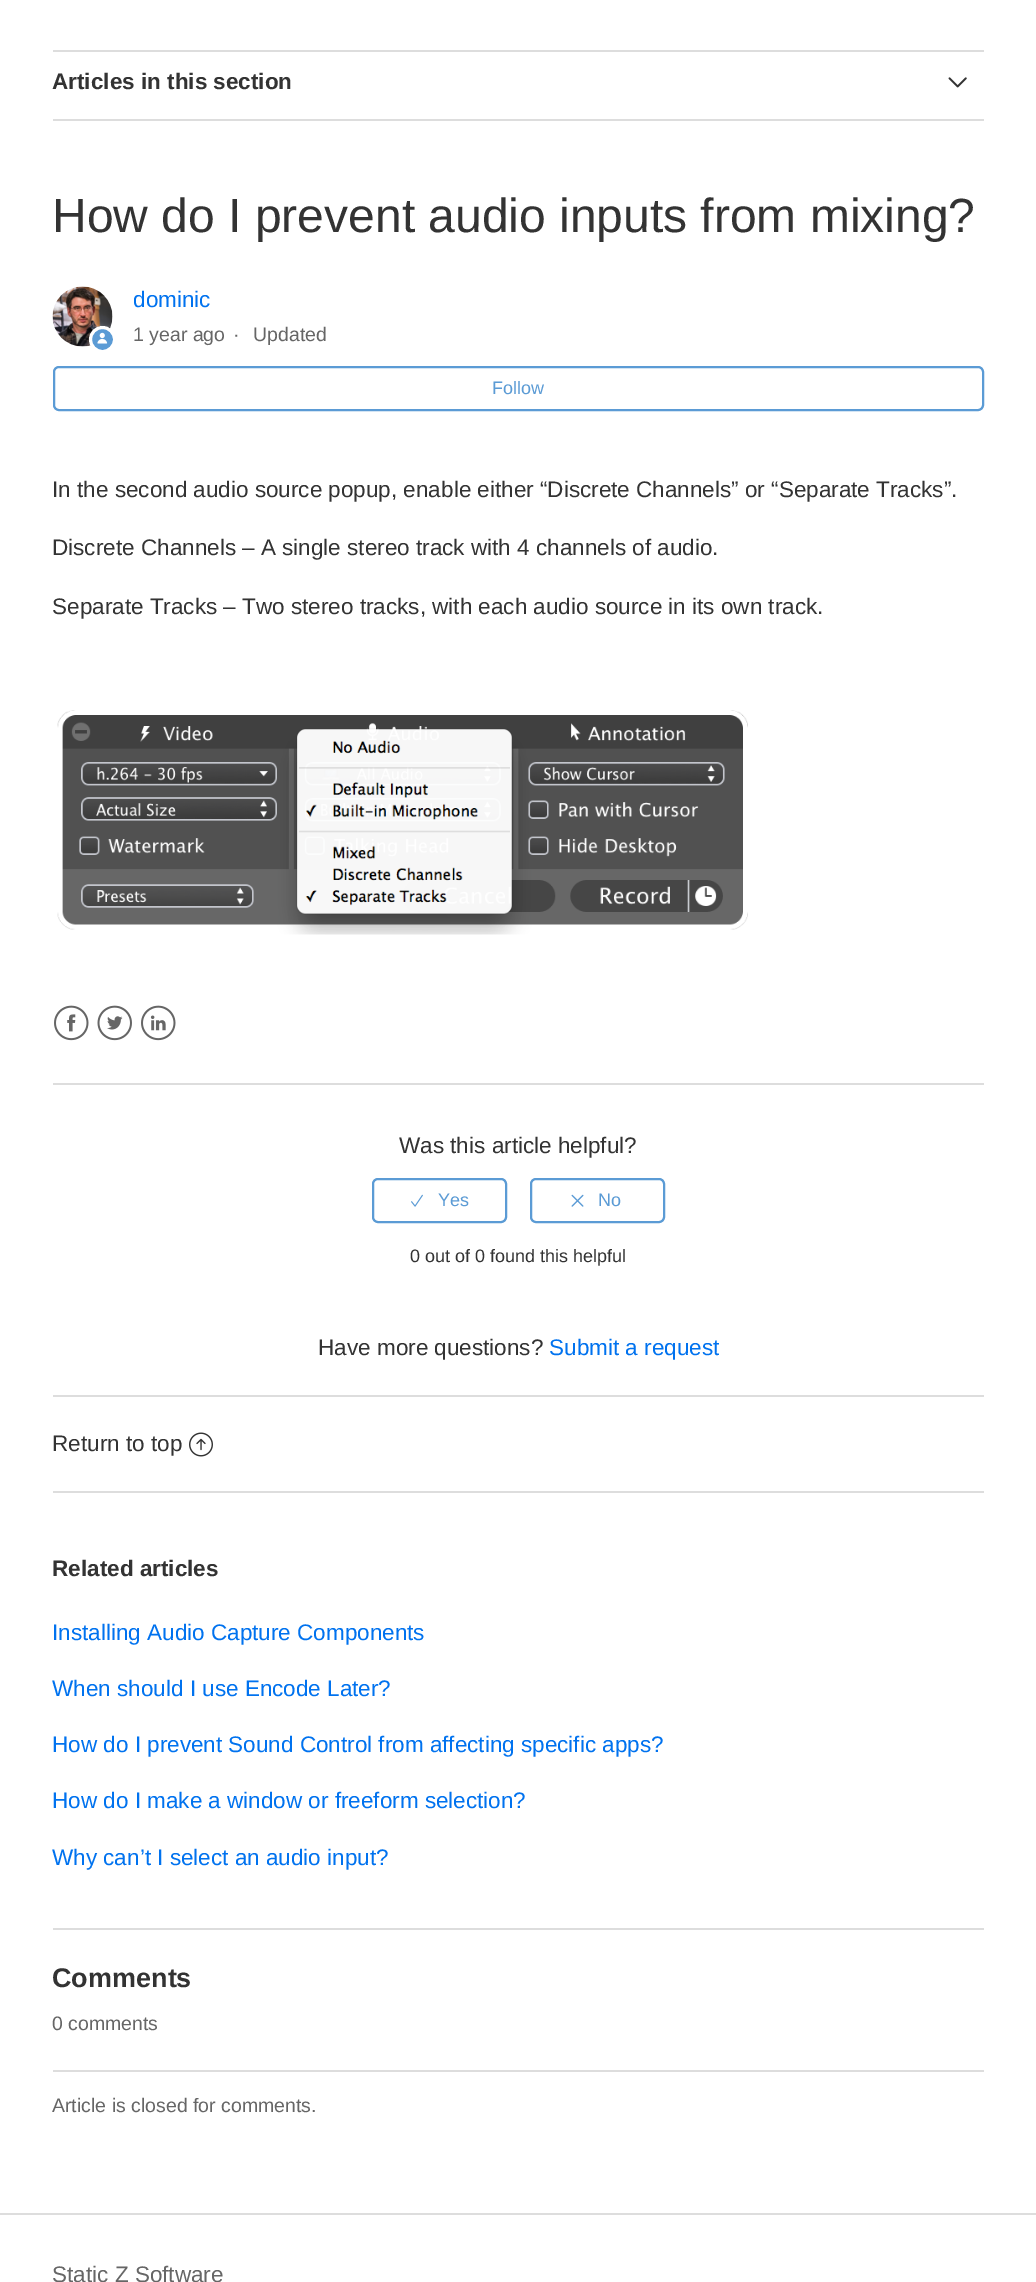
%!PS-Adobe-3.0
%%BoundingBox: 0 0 1036 2282
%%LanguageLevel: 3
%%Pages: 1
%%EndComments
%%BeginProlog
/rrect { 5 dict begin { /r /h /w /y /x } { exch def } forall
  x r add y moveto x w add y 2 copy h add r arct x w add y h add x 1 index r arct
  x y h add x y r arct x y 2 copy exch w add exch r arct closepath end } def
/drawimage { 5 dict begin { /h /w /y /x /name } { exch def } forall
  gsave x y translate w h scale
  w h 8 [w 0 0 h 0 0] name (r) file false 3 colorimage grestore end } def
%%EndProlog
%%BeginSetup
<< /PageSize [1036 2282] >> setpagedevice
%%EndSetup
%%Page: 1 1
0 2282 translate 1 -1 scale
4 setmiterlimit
1 setgray
0 0 1036 2282 rectfill
0.867 setgray
53 50 931 2 rectfill
53 119 931 2 rectfill
(images/1.raw) 948 77 19 11 drawimage
(images/2.raw) 52 286 61 61 drawimage
0.357 0.608 0.835 setrgbcolor
newpath 102.5 339.5 12 0 360 arc closepath gsave fill grestore
1 setgray
3 setlinewidth
stroke
(images/3.raw) 97 332 11 12 drawimage
0.357 0.608 0.835 setrgbcolor
2 setlinewidth
54 367 929 43 5 rrect stroke
(images/4.raw) 57 710 691 225 drawimage
(images/5.raw) 54 1005 35 36 drawimage
(images/6.raw) 97 1005 35 36 drawimage
(images/7.raw) 141 1005 35 36 drawimage
0.867 setgray
53 1083 931 2 rectfill
0.357 0.608 0.835 setrgbcolor
373 1179 133 43 5 rrect stroke
(images/8.raw) 411 1194 12 13 drawimage
531 1179 133 43 5 rrect stroke
(images/9.raw) 571 1194 13 13 drawimage
0.867 setgray
53 1395 931 2 rectfill
(images/10.raw) 189 1432 24 25 drawimage
53 1491 931 2 rectfill
53 1928 931 2 rectfill
53 2070 931 2 rectfill
0 2213 1036 2 rectfill
/LiberationSans-Bold [22.5 0 0 -22.5 0 0] selectfont
0.2 setgray
52 89 moveto (Articles in this section) show
/LiberationSans-Regular [48 0 0 -48 0 0] selectfont
52 232 moveto (How do I prevent audio inputs from mixing?) show
/LiberationSans-Regular [22.5 0 0 -22.5 0 0] selectfont
0 0.447 0.937 setrgbcolor
133 307 moveto (dominic) show
/LiberationSans-Regular [19.5 0 0 -19.5 0 0] selectfont
0.4 setgray
133 341 moveto (1 year ago) show
233 341 moveto (·) show
253 341 moveto (Updated) show
/LiberationSans-Regular [18 0 0 -18 0 0] selectfont
0.357 0.608 0.835 setrgbcolor
492 394 moveto (Follow) show
/LiberationSans-Regular [22.5 0 0 -22.5 0 0] selectfont
0.2 setgray
52 497 moveto (In the second audio source popup, enable either “Discrete Channels” or “Separate Tracks”.) show
52 555 moveto (Discrete Channels – A single stereo track with 4 channels of audio.) show
52 614 moveto (Separate Tracks – Two stereo tracks, with each audio source in its own track.) show
399 1153 moveto (Was this article helpful?) show
/LiberationSans-Regular [18 0 0 -18 0 0] selectfont
0.357 0.608 0.835 setrgbcolor
438 1206 moveto (Yes) show
598 1206 moveto (No) show
0.2 setgray
410 1262 moveto (0 out of 0 found this helpful) show
/LiberationSans-Regular [22.5 0 0 -22.5 0 0] selectfont
318 1355 moveto (Have more questions?) show
0 0.447 0.937 setrgbcolor
549 1355 moveto (Submit a request) show
0.2 setgray
52 1451 moveto (Return to top) show
/LiberationSans-Bold [22.5 0 0 -22.5 0 0] selectfont
52 1576 moveto (Related articles) show
/LiberationSans-Regular [22.5 0 0 -22.5 0 0] selectfont
0 0.447 0.937 setrgbcolor
52 1640 moveto (Installing Audio Capture Components) show
52 1696 moveto (When should I use Encode Later?) show
52 1752 moveto (How do I prevent Sound Control from affecting specific apps?) show
52 1808 moveto (How do I make a window or freeform selection?) show
52 1865 moveto (Why can’t I select an audio input?) show
/LiberationSans-Bold [27 0 0 -27 0 0] selectfont
0.2 setgray
52 1987 moveto (Comments) show
/LiberationSans-Regular [19.5 0 0 -19.5 0 0] selectfont
0.4 setgray
52 2030 moveto (0 comments) show
52 2112 moveto (Article is closed for comments.) show
/LiberationSans-Regular [22.5 0 0 -22.5 0 0] selectfont
52 2282 moveto (Static Z Software) show
showpage
%%EOF
